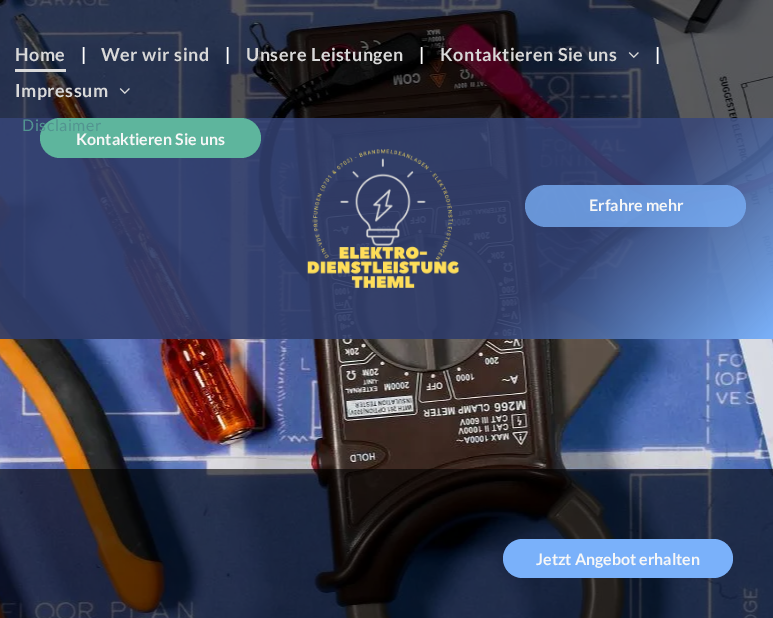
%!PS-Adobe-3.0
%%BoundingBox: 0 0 773 618
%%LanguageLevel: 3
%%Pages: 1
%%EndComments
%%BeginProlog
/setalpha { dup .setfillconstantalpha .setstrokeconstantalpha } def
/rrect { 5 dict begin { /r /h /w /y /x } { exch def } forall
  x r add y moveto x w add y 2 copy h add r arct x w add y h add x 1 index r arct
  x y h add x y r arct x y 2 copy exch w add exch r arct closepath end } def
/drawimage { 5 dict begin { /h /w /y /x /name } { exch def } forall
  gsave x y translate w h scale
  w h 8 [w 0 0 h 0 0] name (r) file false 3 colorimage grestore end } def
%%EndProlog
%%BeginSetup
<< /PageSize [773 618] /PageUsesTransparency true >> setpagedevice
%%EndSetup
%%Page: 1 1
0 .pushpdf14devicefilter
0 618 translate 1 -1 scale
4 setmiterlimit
1 setgray
0 0 773 618 rectfill
(images/1.raw) 0 0 773 618 drawimage
0.6 setalpha
0 setgray
0 0 773 118 rectfill
1 setalpha
0.851 setgray
15 69 51 3 rectfill
(images/2.raw) 628 52 11 6 drawimage
(images/3.raw) 119 88 11 6 drawimage
0.369 0.71 0.616 setrgbcolor
40 118 221 40 20 rrect fill
(images/4.raw) 307 149 152 139 drawimage
0.76 setalpha
0.478 0.694 0.98 setrgbcolor
525 185 221 42 21 rrect fill
0.6 setalpha
0 setgray
0 469 773 149 rectfill
1 setalpha
0.478 0.694 0.98 setrgbcolor
503 539 230 39 19.5 rrect fill
/Lato-Bold [18 0 0 -18 0 0] selectfont
0.851 setgray
15 61 moveto 0.5 0 (Home) ashow
1 setgray
81 61 moveto (|) show
0.851 setgray
101 61 moveto 0.5 0 (Wer wir sind) ashow
1 setgray
225 61 moveto (|) show
0.851 setgray
246 61 moveto 0.5 0 (Unsere Leistungen) ashow
1 setgray
419 61 moveto (|) show
0.851 setgray
440 61 moveto 0.5 0 (Kontaktieren Sie uns) ashow
1 setgray
655 61 moveto (|) show
0.851 setgray
15 97 moveto 0.5 0 (Impressum) ashow
/Lato-Regular [16 0 0 -16 0 0] selectfont
0.322 0.58 0.565 setrgbcolor
22 131 moveto 0.5 0 (Disclaimer) ashow
/Lato-Bold [16 0 0 -16 0 0] selectfont
0.969 setgray
76 145 moveto (Kontaktieren Sie uns) show
589 211 moveto (Erfahre mehr) show
536 565 moveto (Jetzt Angebot erhalten) show
.poppdf14devicefilter showpage
%%EOF
